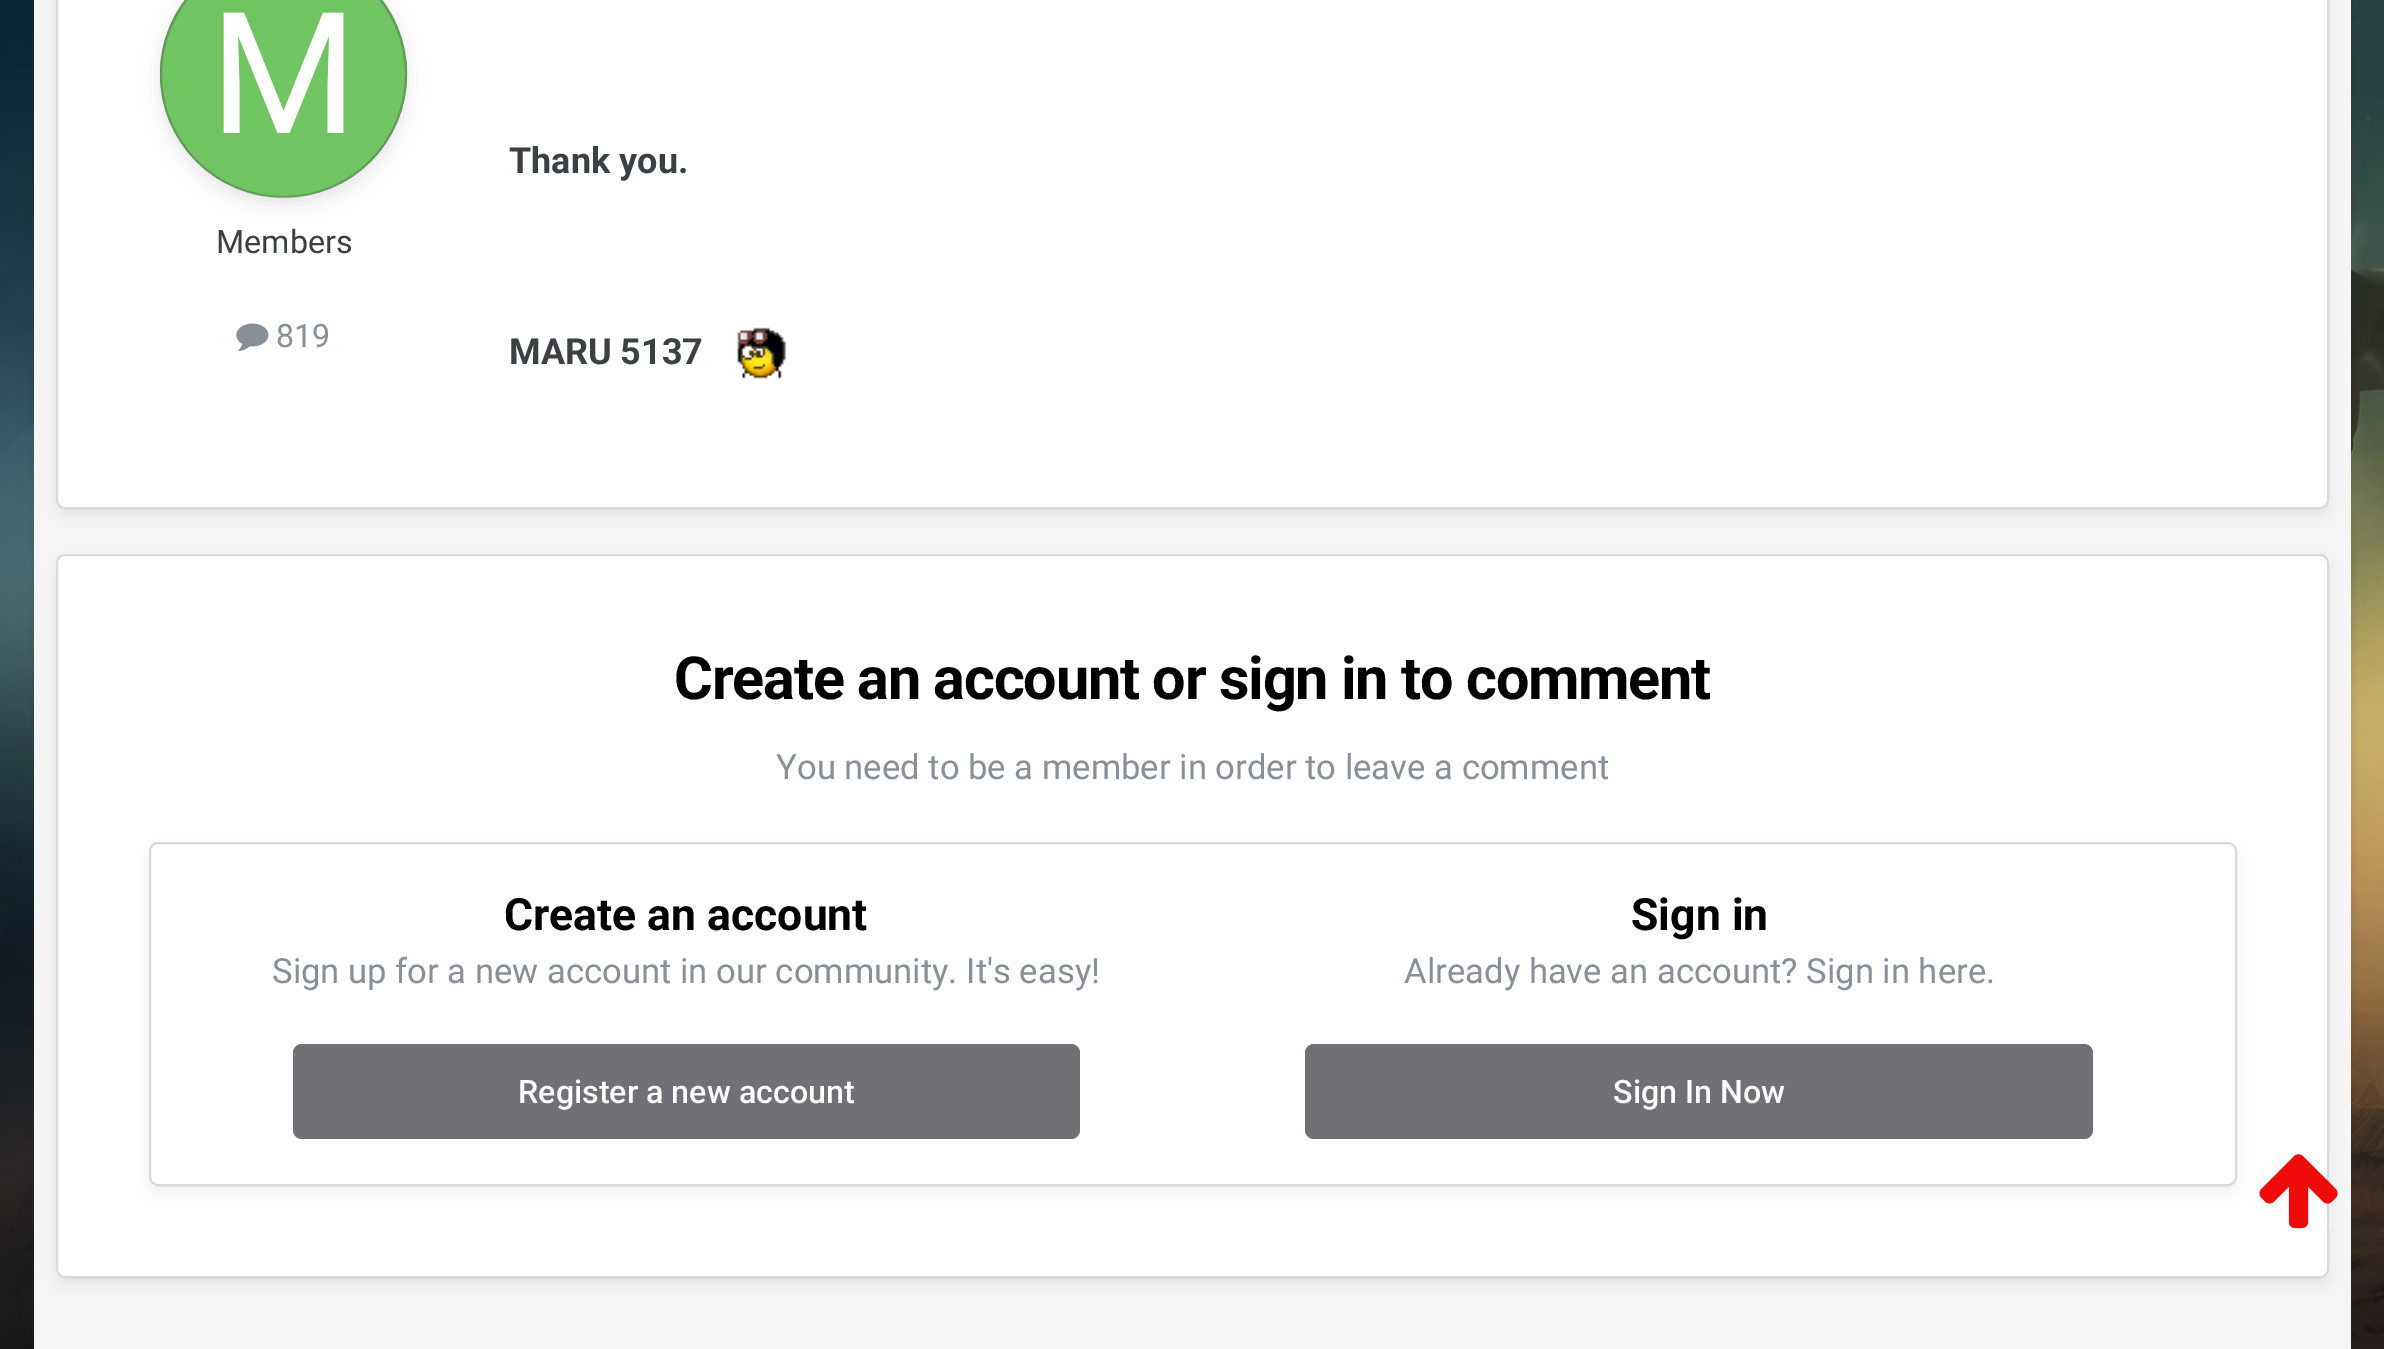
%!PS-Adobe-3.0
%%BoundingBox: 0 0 2384 1349
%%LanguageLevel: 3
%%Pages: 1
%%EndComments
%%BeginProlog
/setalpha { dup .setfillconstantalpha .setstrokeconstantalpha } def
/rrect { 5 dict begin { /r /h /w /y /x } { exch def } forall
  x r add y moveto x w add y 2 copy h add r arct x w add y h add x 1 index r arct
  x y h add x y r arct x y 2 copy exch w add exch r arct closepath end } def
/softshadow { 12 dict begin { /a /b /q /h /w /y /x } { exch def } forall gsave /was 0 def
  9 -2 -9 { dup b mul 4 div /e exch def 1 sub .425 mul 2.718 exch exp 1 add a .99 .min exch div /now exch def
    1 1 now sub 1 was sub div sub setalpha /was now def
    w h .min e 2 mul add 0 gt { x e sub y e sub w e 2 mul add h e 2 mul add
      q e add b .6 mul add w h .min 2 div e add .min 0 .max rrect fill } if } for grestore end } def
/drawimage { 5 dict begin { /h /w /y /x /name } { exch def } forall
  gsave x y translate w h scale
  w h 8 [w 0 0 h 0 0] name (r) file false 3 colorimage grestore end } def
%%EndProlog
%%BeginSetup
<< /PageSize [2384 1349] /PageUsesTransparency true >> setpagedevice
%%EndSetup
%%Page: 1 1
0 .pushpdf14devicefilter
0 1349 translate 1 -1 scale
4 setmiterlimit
1 setgray
0 0 2384 1349 rectfill
(images/1.raw) 0 0 2384 1349 drawimage
0 setgray
34 -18 2317 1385 7 3.5 0.08 softshadow
34 -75 2317 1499 7 22.5 0.06 softshadow
0.961 setgray
34 0 2317 1349 rectfill
0 setgray
59 -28 2268 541 7 7 0.08 softshadow
1 setgray
56 -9 2273 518 9 rrect fill
0.2 setalpha
0.231 0.251 0.263 setrgbcolor
2 setlinewidth
57 -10 2271 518 8 rrect stroke
1 setalpha
(images/2.raw) 160 0 247 198 drawimage
gsave
newpath 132 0 moveto 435 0 lineto 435 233 lineto 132 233 lineto closepath 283.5 -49 moveto 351.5 -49 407 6.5 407 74.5 curveto 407 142.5 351.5 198 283.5 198 curveto 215.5 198 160 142.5 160 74.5 curveto 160 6.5 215.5 -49 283.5 -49 curveto closepath eoclip newpath
0 setgray
160 -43 247 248 123.5 9 0.1 softshadow
grestore
0.3 setalpha
newpath 283.5 74.5 122.5 0 360 arc closepath stroke
1 setalpha
(images/3.raw) 236 323 33 29 drawimage
(images/4.raw) 737 327 49 52 drawimage
0 setgray
59 563 2268 720 7 7 0.08 softshadow
1 setgray
56 554 2273 724 9 rrect fill
0.2 setalpha
0.231 0.251 0.263 setrgbcolor
57 555 2271 722 8 rrect stroke
1 setalpha
0 setgray
151 851 2083 339 7 7 0.08 softshadow
1 setgray
149 842 2088 344 9 rrect fill
0.2 setalpha
0.231 0.251 0.263 setrgbcolor
150 843 2086 342 8 rrect stroke
1 setalpha
0.435 0.443 0.459 setrgbcolor
293 1044 787 95 9 rrect fill
1305 1044 788 95 9 rrect fill
(images/5.raw) 2259 1154 79 75 drawimage
/Roboto-Regular [32.25 0 0 -32.25 0 0] selectfont
0.231 0.251 0.263 setrgbcolor
216 253 moveto (Members) show
0.537 0.561 0.592 setrgbcolor
276 347 moveto (819) show
/Roboto-Bold [36 0 0 -36 0 0] selectfont
0.231 0.251 0.263 setrgbcolor
509 173 moveto (Thank you.) show
509 364 moveto (MARU 5137) show
/Roboto-Bold [59.4 0 0 -59.4 0 0] selectfont
0 setgray
674 699 moveto -1.2 0 (Create an account or sign in to comment) ashow
/Roboto-Regular [34.65 0 0 -34.65 0 0] selectfont
0.537 0.561 0.592 setrgbcolor
776 779 moveto (You need to be a member in order to leave a comment) show
/Roboto-Bold [44.5 0 0 -44.5 0 0] selectfont
0 setgray
504 930 moveto (Create an account) show
/Roboto-Regular [34.65 0 0 -34.65 0 0] selectfont
0.537 0.561 0.592 setrgbcolor
272 983 moveto (Sign up for a new account in our community. It's easy!) show
/Roboto-Medium [32.25 0 0 -32.25 0 0] selectfont
1 setgray
518 1103 moveto (Register a new account) show
/Roboto-Bold [44.5 0 0 -44.5 0 0] selectfont
0 setgray
1631 930 moveto (Sign in) show
/Roboto-Regular [34.65 0 0 -34.65 0 0] selectfont
0.537 0.561 0.592 setrgbcolor
1404 983 moveto (Already have an account? Sign in here.) show
/Roboto-Medium [32.25 0 0 -32.25 0 0] selectfont
1 setgray
1613 1103 moveto (Sign In Now) show
.poppdf14devicefilter showpage
%%EOF
